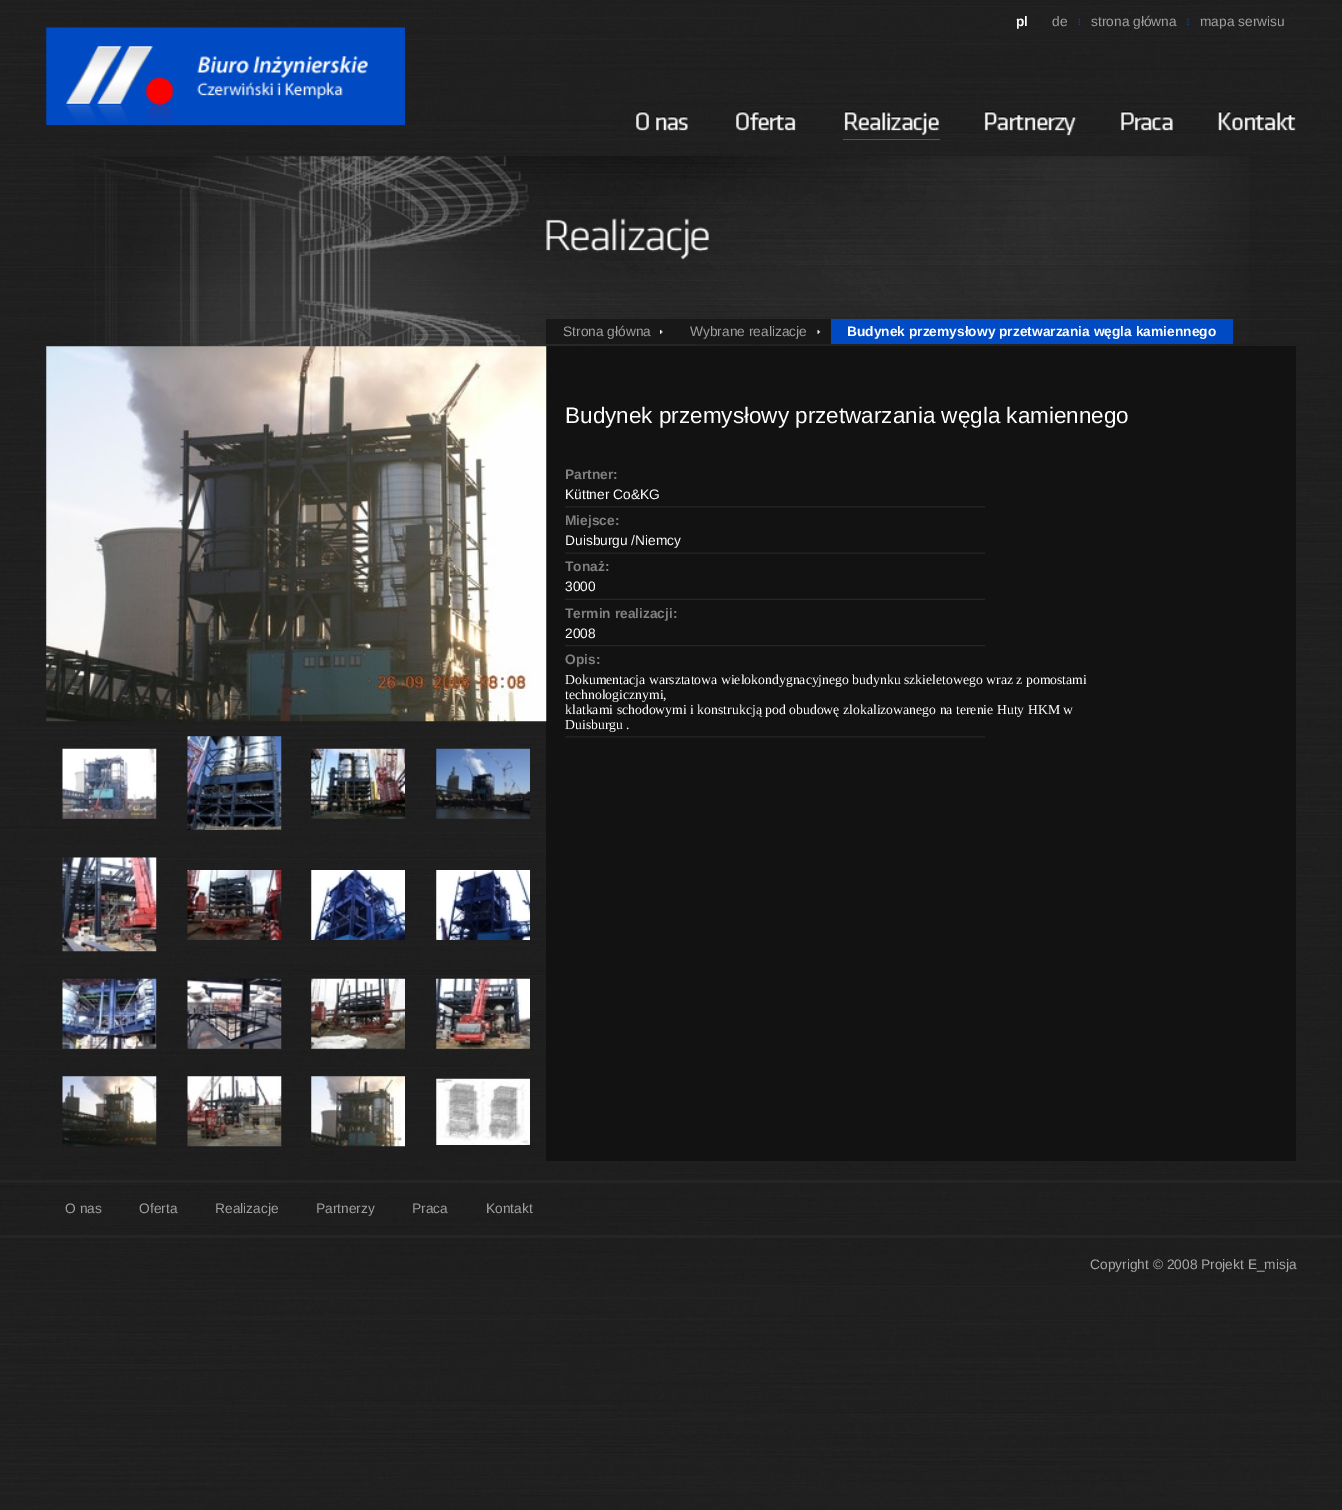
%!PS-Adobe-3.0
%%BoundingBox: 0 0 1342 1510
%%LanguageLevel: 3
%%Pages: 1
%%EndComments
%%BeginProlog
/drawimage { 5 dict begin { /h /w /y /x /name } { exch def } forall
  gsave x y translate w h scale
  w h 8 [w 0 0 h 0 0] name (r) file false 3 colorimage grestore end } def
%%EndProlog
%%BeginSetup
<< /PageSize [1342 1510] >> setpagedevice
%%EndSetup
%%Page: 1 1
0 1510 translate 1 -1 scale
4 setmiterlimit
1 setgray
0 0 1342 1510 rectfill
(images/1.raw) 0 0 1342 1510 drawimage
(images/2.raw) 74 156 1175 191 drawimage
(images/3.raw) 1078 18 2 7 drawimage
(images/4.raw) 1187 18 2 7 drawimage
(images/5.raw) 46 27 359 98 drawimage
(images/6.raw) 636 111 52 20 drawimage
(images/7.raw) 736 111 60 20 drawimage
(images/8.raw) 844 111 95 25 drawimage
0 0.376 1 setrgbcolor
843 139 97 1 rectfill
(images/9.raw) 984 111 93 25 drawimage
(images/10.raw) 1121 111 52 20 drawimage
(images/11.raw) 1218 111 78 20 drawimage
(images/12.raw) 546 218 163 42 drawimage
0.094 setgray
546 319 285 25 rectfill
(images/13.raw) 660 329 3 5 drawimage
(images/14.raw) 817 329 4 5 drawimage
0 0.29 0.769 setrgbcolor
831 319 402 25 rectfill
0.071 setgray
546 346 750 815 rectfill
(images/15.raw) 46 346 501 376 drawimage
(images/16.raw) 62 748 95 71 drawimage
(images/17.raw) 187 736 95 94 drawimage
(images/18.raw) 311 748 94 71 drawimage
(images/19.raw) 436 748 94 71 drawimage
(images/20.raw) 62 857 95 95 drawimage
(images/21.raw) 187 870 95 70 drawimage
(images/22.raw) 311 870 94 70 drawimage
(images/23.raw) 436 870 94 70 drawimage
(images/24.raw) 62 978 95 71 drawimage
(images/25.raw) 187 978 95 71 drawimage
(images/26.raw) 311 978 94 71 drawimage
(images/27.raw) 436 978 94 71 drawimage
(images/28.raw) 62 1076 95 71 drawimage
(images/29.raw) 187 1076 95 71 drawimage
(images/30.raw) 311 1076 94 71 drawimage
(images/31.raw) 436 1078 94 67 drawimage
(images/32.raw) 565 506 420 2 drawimage
(images/33.raw) 565 552 420 2 drawimage
(images/34.raw) 565 598 420 2 drawimage
(images/35.raw) 565 645 420 2 drawimage
(images/32.raw) 565 736 420 2 drawimage
0.145 setgray
0 1180 1342 3 rectfill
0 1235 1342 3 rectfill
/LiberationSans-Bold [13.75 0 0 -13.75 0 0] selectfont
1 setgray
1016 26 moveto (pl) show
/LiberationSans-Regular [13.75 0 0 -13.75 0 0] selectfont
0.627 setgray
1052 26 moveto (de) show
1091 26 moveto (strona główna) show
1200 26 moveto (mapa serwisu) show
563 336 moveto (Strona główna) show
690 336 moveto (Wybrane realizacje) show
/LiberationSans-Bold [13.75 0 0 -13.75 0 0] selectfont
1 setgray
847 336 moveto (Budynek przemysłowy przetwarzania węgla kamiennego) show
/LiberationSans-Regular [22.5 0 0 -22.5 0 0] selectfont
565 423 moveto (Budynek przemysłowy przetwarzania węgla kamiennego) show
/LiberationSans-Bold [13.75 0 0 -13.75 0 0] selectfont
0.502 setgray
565 479 moveto (Partner:) show
/LiberationSans-Regular [13.75 0 0 -13.75 0 0] selectfont
1 setgray
565 499 moveto (Küttner Co&KG) show
/LiberationSans-Bold [13.75 0 0 -13.75 0 0] selectfont
0.502 setgray
565 525 moveto (Miejsce:) show
/LiberationSans-Regular [13.75 0 0 -13.75 0 0] selectfont
1 setgray
565 545 moveto (Duisburgu /Niemcy) show
/LiberationSans-Bold [13.75 0 0 -13.75 0 0] selectfont
0.502 setgray
565 571 moveto (Tonaż:) show
/LiberationSans-Regular [13.75 0 0 -13.75 0 0] selectfont
1 setgray
565 591 moveto (3000) show
/LiberationSans-Bold [13.75 0 0 -13.75 0 0] selectfont
0.502 setgray
565 618 moveto (Termin realizacji:) show
/LiberationSans-Regular [13.75 0 0 -13.75 0 0] selectfont
1 setgray
565 638 moveto (2008) show
/LiberationSans-Bold [13.75 0 0 -13.75 0 0] selectfont
0.502 setgray
565 664 moveto (Opis:) show
/LiberationSerif-Regular [13.75 0 0 -13.75 0 0] selectfont
1 setgray
565 684 moveto (Dokumentacja warsztatowa wielokondygnacyjnego budynku szkieletowego wraz z pomostami) show
565 699 moveto (technologicznymi,) show
565 714 moveto (klatkami schodowymi i konstrukcją pod obudowę zlokalizowanego na terenie Huty HKM w) show
565 729 moveto (Duisburgu .) show
/LiberationSans-Regular [13.75 0 0 -13.75 0 0] selectfont
0.627 setgray
65 1213 moveto (O nas) show
139 1213 moveto (Oferta) show
215 1213 moveto (Realizacje) show
316 1213 moveto (Partnerzy) show
412 1213 moveto (Praca) show
486 1213 moveto (Kontakt) show
0.663 setgray
1090 1269 moveto (Copyright © 2008 Projekt E_misja) show
showpage
%%EOF
